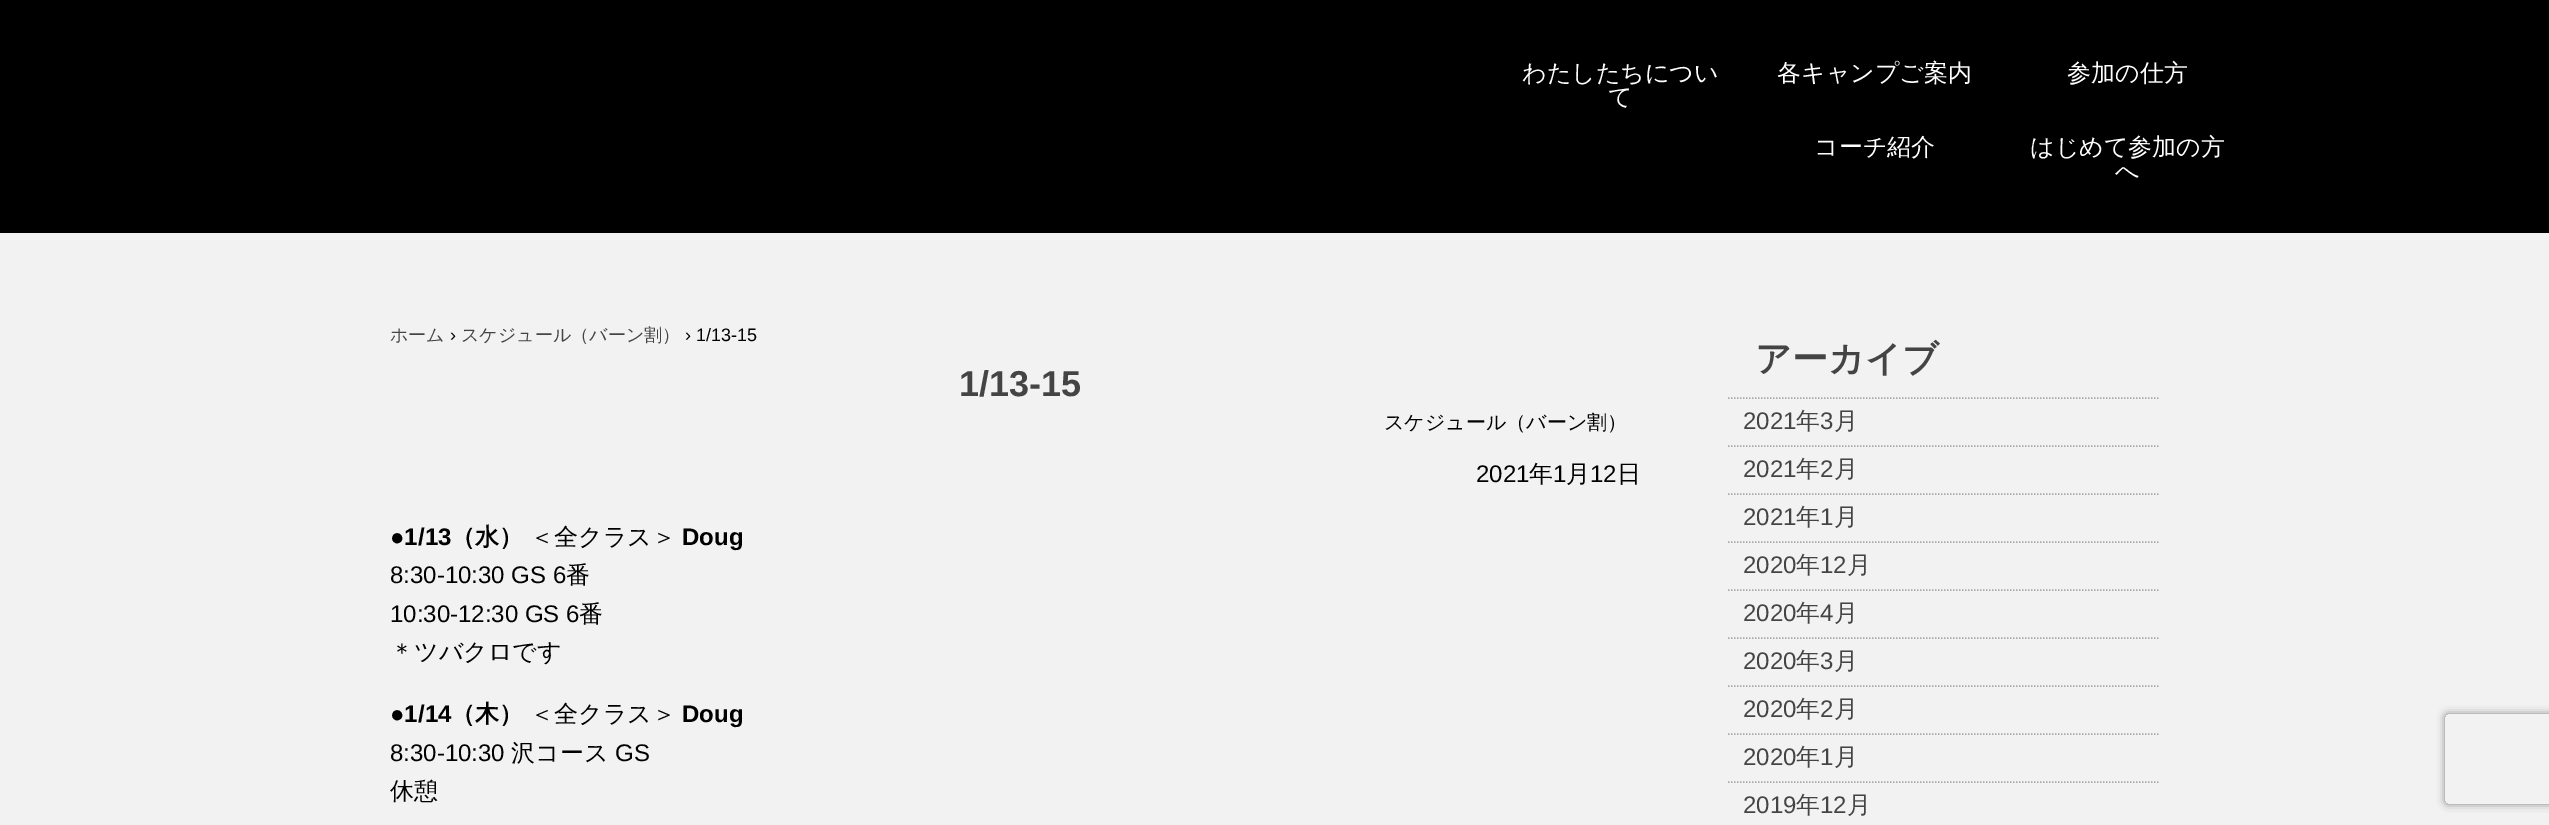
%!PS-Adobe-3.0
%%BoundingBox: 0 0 2549 825
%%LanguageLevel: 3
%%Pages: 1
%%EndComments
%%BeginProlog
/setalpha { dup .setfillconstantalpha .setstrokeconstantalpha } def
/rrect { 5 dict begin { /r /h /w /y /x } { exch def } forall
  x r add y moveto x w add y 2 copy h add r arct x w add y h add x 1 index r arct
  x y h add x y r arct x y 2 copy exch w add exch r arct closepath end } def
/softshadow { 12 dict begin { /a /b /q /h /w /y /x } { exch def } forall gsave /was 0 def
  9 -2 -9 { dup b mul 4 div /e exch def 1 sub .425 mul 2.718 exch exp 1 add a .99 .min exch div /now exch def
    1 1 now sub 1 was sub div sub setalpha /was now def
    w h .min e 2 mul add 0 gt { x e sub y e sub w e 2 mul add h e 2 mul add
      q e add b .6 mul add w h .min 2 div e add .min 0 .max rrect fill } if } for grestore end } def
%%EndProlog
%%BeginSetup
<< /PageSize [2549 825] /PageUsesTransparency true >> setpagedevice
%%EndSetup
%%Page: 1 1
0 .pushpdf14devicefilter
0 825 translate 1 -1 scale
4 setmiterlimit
0.949 setgray
0 0 2549 825 rectfill
0 setgray
0 0 2549 233 rectfill
0.667 setgray
1.5 setlinewidth
[1.5 1.5] 0 setdash
newpath 1728 398 moveto 2160 398 lineto stroke
newpath 1728 446 moveto 2160 446 lineto stroke
newpath 1728 494 moveto 2160 494 lineto stroke
newpath 1728 542 moveto 2160 542 lineto stroke
newpath 1728 590 moveto 2160 590 lineto stroke
newpath 1728 638 moveto 2160 638 lineto stroke
newpath 1728 686 moveto 2160 686 lineto stroke
newpath 1728 734 moveto 2160 734 lineto stroke
newpath 1728 782 moveto 2160 782 lineto stroke
gsave
newpath 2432 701 moveto 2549 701 lineto 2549 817 lineto 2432 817 lineto closepath 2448 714 moveto 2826 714 lineto 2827.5 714 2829 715.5 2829 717 curveto 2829 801 lineto 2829 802.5 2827.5 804 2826 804 curveto 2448 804 lineto 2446.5 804 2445 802.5 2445 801 curveto 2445 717 lineto 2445 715.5 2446.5 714 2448 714 curveto closepath eoclip newpath
0.502 setgray
2445 714 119 90 3 4 1 softshadow
grestore
/WenQuanYiZenHei-Medium [24 0 0 -24 0 0] selectfont
1 setgray
1522 81 moveto (わたしたちについ) show
1608 105 moveto (て) show
1777 81 moveto (各キャンプご案内) show
2067 81 moveto (参加の仕方) show
1814 155 moveto (コーチ紹介) show
2030 155 moveto (はじめて参加の方) show
2115 179 moveto (へ) show
/WenQuanYiZenHei-Medium [18 0 0 -18 0 0] selectfont
0.267 setgray
390 341 moveto (ホーム) show
/LiberationSans-Regular [18 0 0 -18 0 0] selectfont
0 setgray
450 341 moveto (›) show
/WenQuanYiZenHei-Medium [18 0 0 -18 0 0] selectfont
0.267 setgray
461 341 moveto (スケジュール（バーン割）) show
/LiberationSans-Regular [18 0 0 -18 0 0] selectfont
0 setgray
685 341 moveto (› 1/13-15) show
/LiberationSans-Bold [36 0 0 -36 0 0] selectfont
0.267 setgray
959 396 moveto (1/13-15) show
/WenQuanYiZenHei-Medium [20 0 0 -20 0 0] selectfont
0 setgray
1384 429 moveto (スケジュール（バーン割）) show
/LiberationSans-Regular [24 0 0 -24 0 0] selectfont
1476 482 moveto (2021) show
/WenQuanYiZenHei-Medium [24 0 0 -24 0 0] selectfont
1529 482 moveto (年) show
/LiberationSans-Regular [24 0 0 -24 0 0] selectfont
1553 482 moveto (1) show
/WenQuanYiZenHei-Medium [24 0 0 -24 0 0] selectfont
1566 482 moveto (月) show
/LiberationSans-Regular [24 0 0 -24 0 0] selectfont
1590 482 moveto (12) show
/WenQuanYiZenHei-Medium [24 0 0 -24 0 0] selectfont
1617 482 moveto (日) show
/LiberationSans-Bold [24 0 0 -24 0 0] selectfont
390 545 moveto (●1/13) show
/WenQuanYiZenHei-Bold [24 0 0 -24 0 0] selectfont
451 545 moveto (（水）) show
/WenQuanYiZenHei-Medium [24 0 0 -24 0 0] selectfont
530 545 moveto (＜全クラス＞) show
/LiberationSans-Bold [24 0 0 -24 0 0] selectfont
682 545 moveto (Doug) show
/LiberationSans-Regular [24 0 0 -24 0 0] selectfont
390 583 moveto (8:30-10:30 GS 6) show
/WenQuanYiZenHei-Medium [24 0 0 -24 0 0] selectfont
566 583 moveto (番) show
/LiberationSans-Regular [24 0 0 -24 0 0] selectfont
390 622 moveto (10:30-12:30 GS 6) show
/WenQuanYiZenHei-Medium [24 0 0 -24 0 0] selectfont
579 622 moveto (番) show
390 660 moveto (＊ツバクロです) show
/LiberationSans-Bold [24 0 0 -24 0 0] selectfont
390 722 moveto (●1/14) show
/WenQuanYiZenHei-Bold [24 0 0 -24 0 0] selectfont
451 722 moveto (（木）) show
/WenQuanYiZenHei-Medium [24 0 0 -24 0 0] selectfont
530 722 moveto (＜全クラス＞) show
/LiberationSans-Bold [24 0 0 -24 0 0] selectfont
682 722 moveto (Doug) show
/LiberationSans-Regular [24 0 0 -24 0 0] selectfont
390 761 moveto (8:30-10:30) show
/WenQuanYiZenHei-Medium [24 0 0 -24 0 0] selectfont
511 761 moveto (沢コース) show
/LiberationSans-Regular [24 0 0 -24 0 0] selectfont
615 761 moveto (GS) show
/WenQuanYiZenHei-Medium [24 0 0 -24 0 0] selectfont
390 799 moveto (休憩) show
/WenQuanYiZenHei-Bold [36 0 0 -36 0 0] selectfont
0.267 setgray
1755 371 moveto (アーカイブ) show
/LiberationSans-Regular [24 0 0 -24 0 0] selectfont
1743 429 moveto (2021) show
/WenQuanYiZenHei-Medium [24 0 0 -24 0 0] selectfont
1796 429 moveto (年) show
/LiberationSans-Regular [24 0 0 -24 0 0] selectfont
1820 429 moveto (3) show
/WenQuanYiZenHei-Medium [24 0 0 -24 0 0] selectfont
1834 429 moveto (月) show
/LiberationSans-Regular [24 0 0 -24 0 0] selectfont
1743 477 moveto (2021) show
/WenQuanYiZenHei-Medium [24 0 0 -24 0 0] selectfont
1796 477 moveto (年) show
/LiberationSans-Regular [24 0 0 -24 0 0] selectfont
1820 477 moveto (2) show
/WenQuanYiZenHei-Medium [24 0 0 -24 0 0] selectfont
1834 477 moveto (月) show
/LiberationSans-Regular [24 0 0 -24 0 0] selectfont
1743 525 moveto (2021) show
/WenQuanYiZenHei-Medium [24 0 0 -24 0 0] selectfont
1796 525 moveto (年) show
/LiberationSans-Regular [24 0 0 -24 0 0] selectfont
1820 525 moveto (1) show
/WenQuanYiZenHei-Medium [24 0 0 -24 0 0] selectfont
1834 525 moveto (月) show
/LiberationSans-Regular [24 0 0 -24 0 0] selectfont
1743 573 moveto (2020) show
/WenQuanYiZenHei-Medium [24 0 0 -24 0 0] selectfont
1796 573 moveto (年) show
/LiberationSans-Regular [24 0 0 -24 0 0] selectfont
1820 573 moveto (12) show
/WenQuanYiZenHei-Medium [24 0 0 -24 0 0] selectfont
1847 573 moveto (月) show
/LiberationSans-Regular [24 0 0 -24 0 0] selectfont
1743 621 moveto (2020) show
/WenQuanYiZenHei-Medium [24 0 0 -24 0 0] selectfont
1796 621 moveto (年) show
/LiberationSans-Regular [24 0 0 -24 0 0] selectfont
1820 621 moveto (4) show
/WenQuanYiZenHei-Medium [24 0 0 -24 0 0] selectfont
1834 621 moveto (月) show
/LiberationSans-Regular [24 0 0 -24 0 0] selectfont
1743 669 moveto (2020) show
/WenQuanYiZenHei-Medium [24 0 0 -24 0 0] selectfont
1796 669 moveto (年) show
/LiberationSans-Regular [24 0 0 -24 0 0] selectfont
1820 669 moveto (3) show
/WenQuanYiZenHei-Medium [24 0 0 -24 0 0] selectfont
1834 669 moveto (月) show
/LiberationSans-Regular [24 0 0 -24 0 0] selectfont
1743 717 moveto (2020) show
/WenQuanYiZenHei-Medium [24 0 0 -24 0 0] selectfont
1796 717 moveto (年) show
/LiberationSans-Regular [24 0 0 -24 0 0] selectfont
1820 717 moveto (2) show
/WenQuanYiZenHei-Medium [24 0 0 -24 0 0] selectfont
1834 717 moveto (月) show
/LiberationSans-Regular [24 0 0 -24 0 0] selectfont
1743 765 moveto (2020) show
/WenQuanYiZenHei-Medium [24 0 0 -24 0 0] selectfont
1796 765 moveto (年) show
/LiberationSans-Regular [24 0 0 -24 0 0] selectfont
1820 765 moveto (1) show
/WenQuanYiZenHei-Medium [24 0 0 -24 0 0] selectfont
1834 765 moveto (月) show
/LiberationSans-Regular [24 0 0 -24 0 0] selectfont
1743 813 moveto (2019) show
/WenQuanYiZenHei-Medium [24 0 0 -24 0 0] selectfont
1796 813 moveto (年) show
/LiberationSans-Regular [24 0 0 -24 0 0] selectfont
1820 813 moveto (12) show
/WenQuanYiZenHei-Medium [24 0 0 -24 0 0] selectfont
1847 813 moveto (月) show
.poppdf14devicefilter showpage
%%EOF
